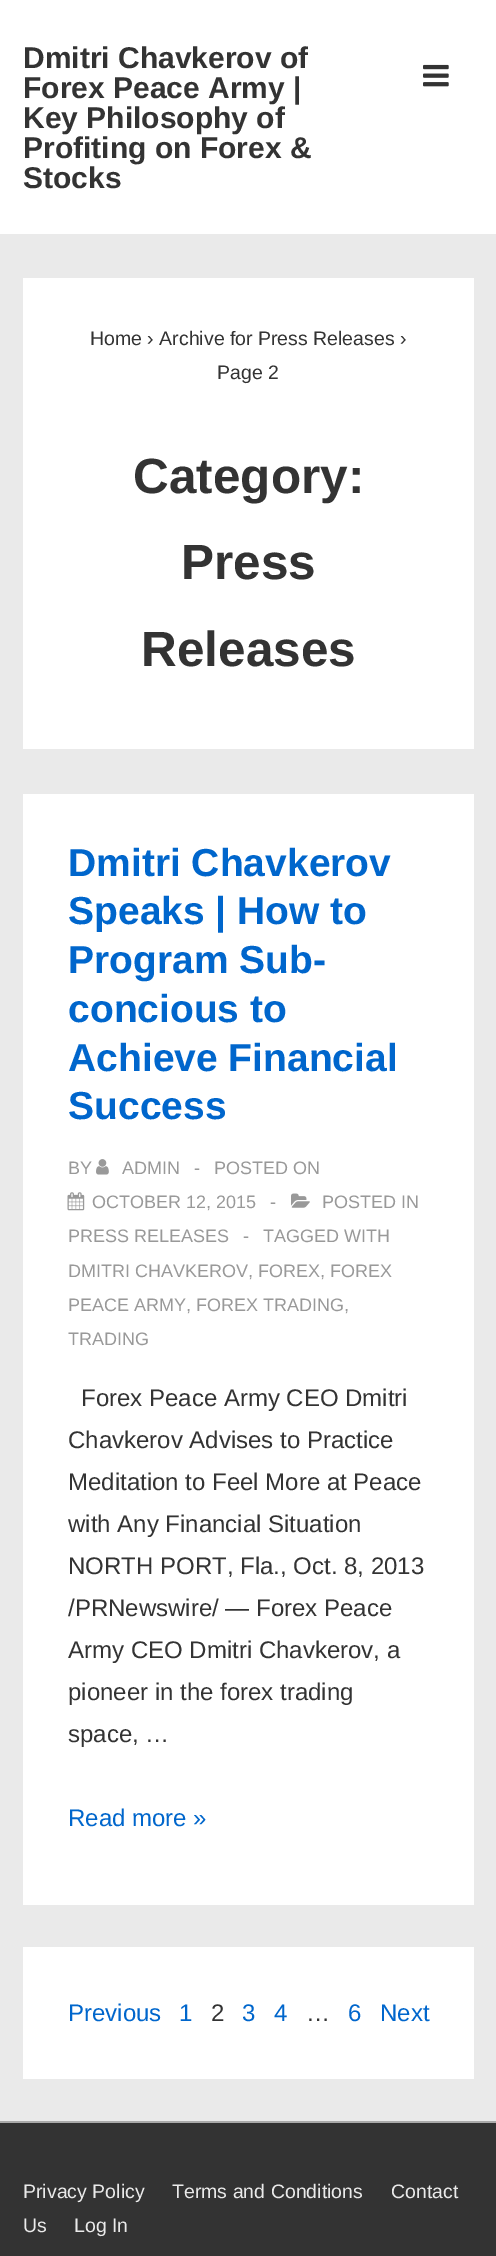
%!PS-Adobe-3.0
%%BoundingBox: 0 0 496 2256
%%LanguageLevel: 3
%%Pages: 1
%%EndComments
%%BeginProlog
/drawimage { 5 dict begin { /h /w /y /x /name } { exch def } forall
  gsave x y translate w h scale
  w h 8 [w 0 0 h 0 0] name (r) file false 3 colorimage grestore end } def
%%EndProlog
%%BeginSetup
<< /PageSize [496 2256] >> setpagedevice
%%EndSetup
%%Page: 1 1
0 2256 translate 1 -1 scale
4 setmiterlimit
0.918 setgray
0 0 496 2256 rectfill
1 setgray
0 0 496 234 rectfill
(images/1.raw) 423 64 26 23 drawimage
23 278 451 471 rectfill
23 794 451 1111 rectfill
(images/2.raw) 96 1159 13 16 drawimage
(images/3.raw) 67 1192 18 19 drawimage
(images/4.raw) 291 1193 19 15 drawimage
23 1947 451 132 rectfill
0.2 setgray
0 2123 496 133 rectfill
0.667 setgray
0 2121 496 2 rectfill
/LiberationSans-Bold [30 0 0 -30 0 0] selectfont
0.2 setgray
23 68 moveto (Dmitri Chavkerov of) show
23 98 moveto (Forex Peace Army |) show
23 128 moveto (Key Philosophy of) show
23 158 moveto (Profiting on Forex &) show
23 188 moveto (Stocks) show
/LiberationSans-Regular [19.5 0 0 -19.5 0 0] selectfont
90 345 moveto (Home › Archive for Press Releases ›) show
217 379 moveto (Page 2) show
/LiberationSans-Bold [49.5 0 0 -49.5 0 0] selectfont
133 493 moveto (Category:) show
181 579 moveto (Press) show
141 666 moveto (Releases) show
/LiberationSans-Bold [39 0 0 -39 0 0] selectfont
0 0.4 0.8 setrgbcolor
68 876 moveto (Dmitri Chavkerov) show
68 924 moveto (Speaks | How to) show
68 973 moveto (Program Sub-) show
68 1022 moveto (concious to) show
68 1071 moveto (Achieve Financial) show
68 1119 moveto (Success) show
/LiberationSans-Regular [18 0 0 -18 0 0] selectfont
0.6 setgray
68 1174 moveto (BY) show
122 1174 moveto (ADMIN) show
194 1174 moveto (-) show
214 1174 moveto (POSTED ON) show
92 1208 moveto (OCTOBER 12, 2015) show
270 1208 moveto (-) show
322 1208 moveto (POSTED IN) show
68 1242 moveto (PRESS RELEASES) show
243 1242 moveto (-) show
263 1242 moveto (TAGGED WITH) show
68 1277 moveto (DMITRI CHAVKEROV, FOREX, FOREX) show
68 1311 moveto (PEACE ARMY, FOREX TRADING,) show
68 1345 moveto (TRADING) show
/LiberationSans-Regular [24 0 0 -24 0 0] selectfont
0.2 setgray
81 1406 moveto (Forex Peace Army CEO Dmitri) show
68 1448 moveto (Chavkerov Advises to Practice) show
68 1490 moveto (Meditation to Feel More at Peace) show
68 1532 moveto (with Any Financial Situation) show
68 1574 moveto (NORTH PORT, Fla., Oct. 8, 2013) show
68 1616 moveto (/PRNewswire/ — Forex Peace) show
68 1658 moveto (Army CEO Dmitri Chavkerov, a) show
68 1700 moveto (pioneer in the forex trading) show
68 1742 moveto (space, …) show
0 0.4 0.8 setrgbcolor
68 1826 moveto (Read more ») show
68 2021 moveto (Previous) show
179 2021 moveto (1) show
0.2 setgray
211 2021 moveto (2) show
0 0.4 0.8 setrgbcolor
242 2021 moveto (3) show
274 2021 moveto (4) show
0.2 setgray
306 2021 moveto (…) show
0 0.4 0.8 setrgbcolor
348 2021 moveto (6) show
380 2021 moveto (Next) show
/LiberationSans-Regular [19.5 0 0 -19.5 0 0] selectfont
0.918 setgray
23 2198 moveto (Privacy Policy) show
172 2198 moveto (Terms and Conditions) show
391 2198 moveto (Contact) show
23 2232 moveto (Us) show
74 2232 moveto (Log In) show
showpage
%%EOF
